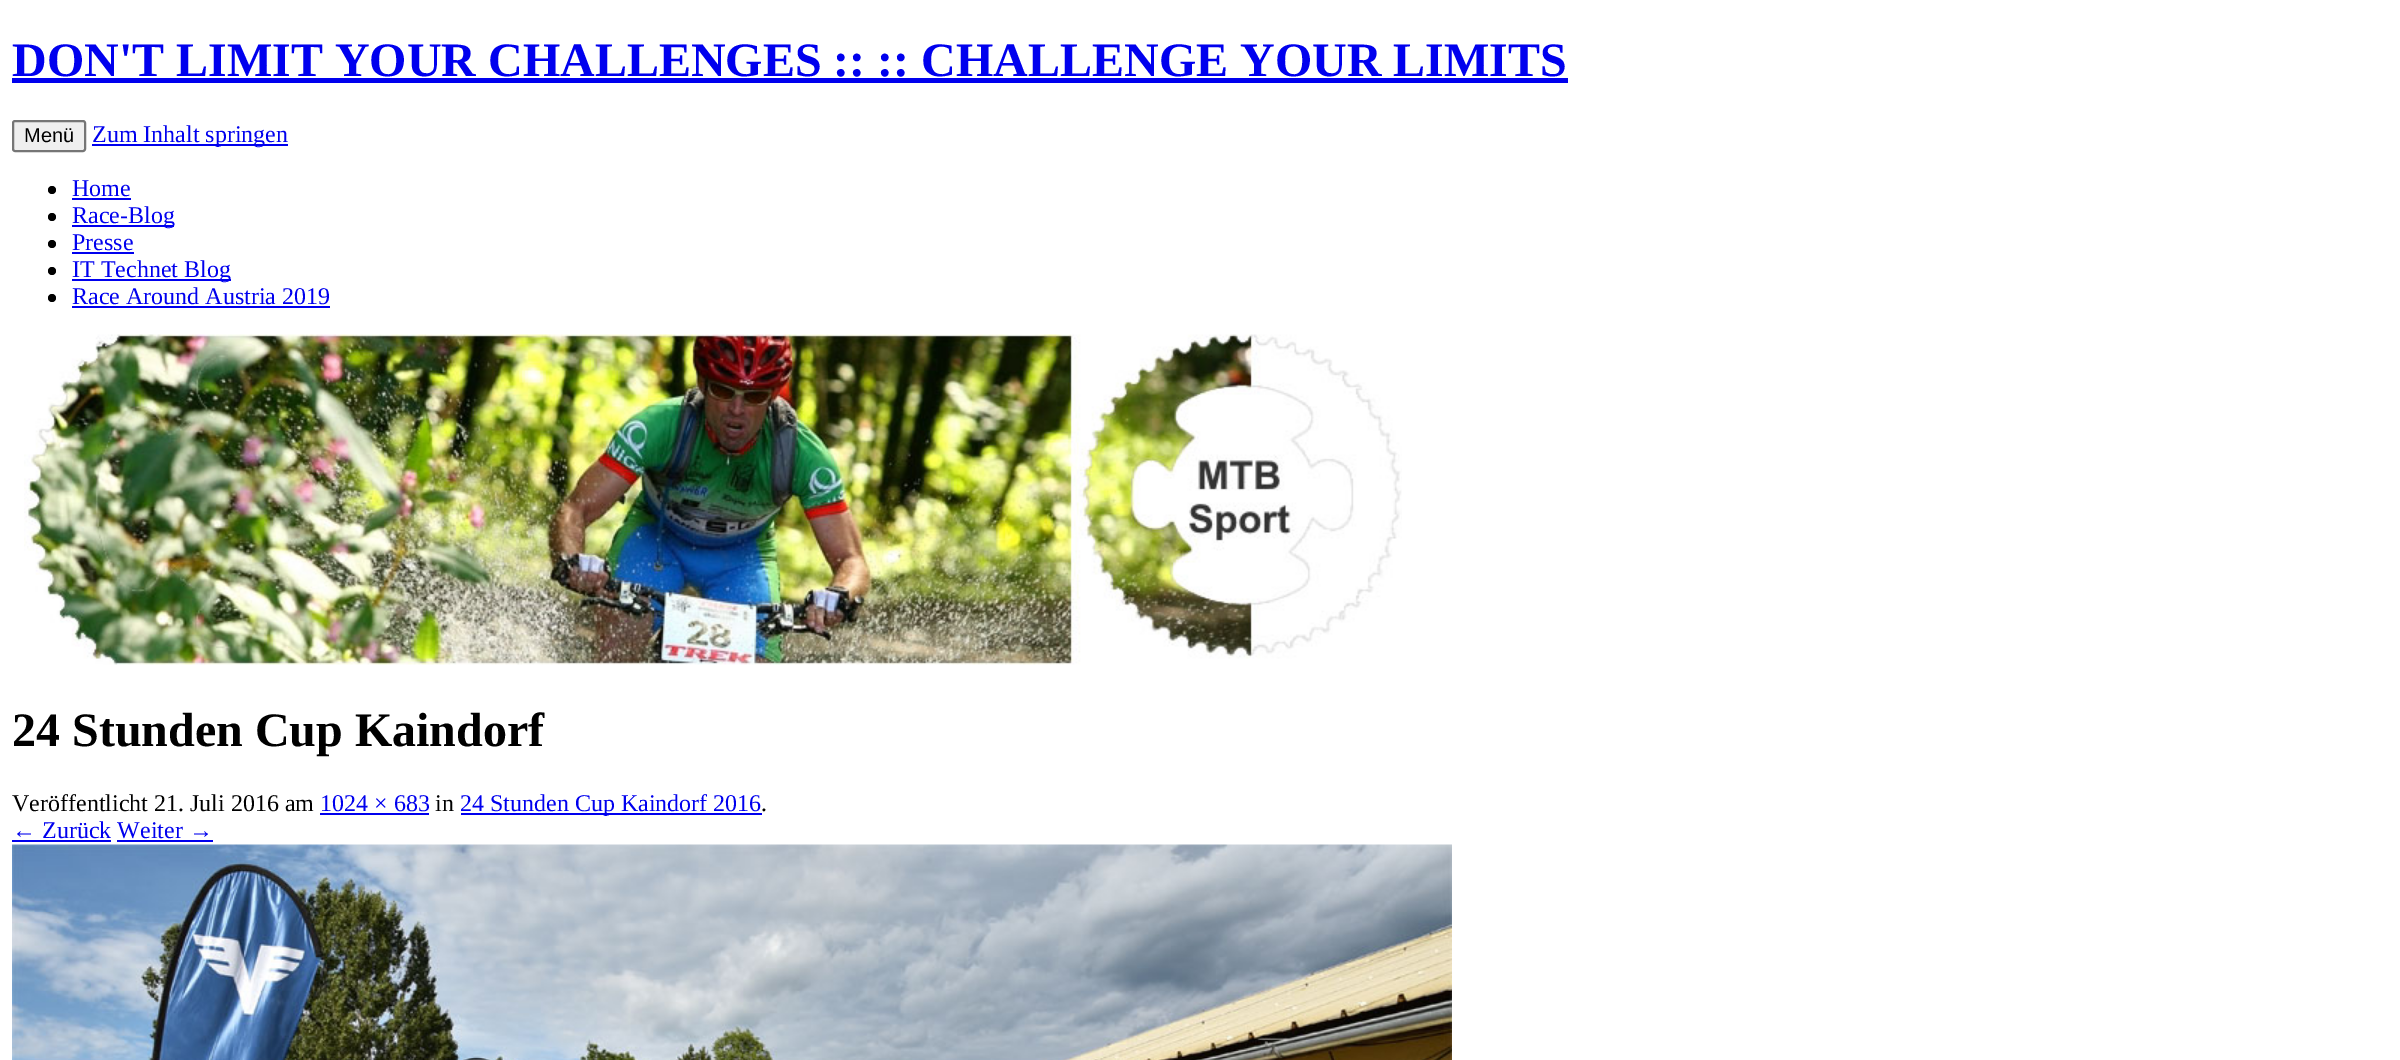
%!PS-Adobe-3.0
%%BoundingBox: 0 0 2400 1060
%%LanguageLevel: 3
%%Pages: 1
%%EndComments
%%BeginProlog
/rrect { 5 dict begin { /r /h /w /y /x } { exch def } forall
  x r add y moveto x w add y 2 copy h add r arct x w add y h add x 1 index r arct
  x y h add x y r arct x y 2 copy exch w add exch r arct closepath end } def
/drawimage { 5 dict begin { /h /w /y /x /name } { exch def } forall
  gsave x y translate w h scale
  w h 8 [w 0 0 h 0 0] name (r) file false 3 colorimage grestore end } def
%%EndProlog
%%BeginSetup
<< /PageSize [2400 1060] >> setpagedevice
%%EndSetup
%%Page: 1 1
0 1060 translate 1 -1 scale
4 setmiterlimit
1 setgray
0 0 2400 1060 rectfill
0 0 0.933 setrgbcolor
12 78 1556 5 rectfill
0.937 setgray
13 121 72 30 2 rrect gsave fill grestore
0.463 setgray
2 setlinewidth
stroke
0 0 0.933 setrgbcolor
92 144 196 2 rectfill
0 setgray
newpath 52 190 4 0 360 arc closepath fill
0 0 0.933 setrgbcolor
72 198 59 2 rectfill
0 setgray
newpath 52 217 4 0 360 arc closepath fill
0 0 0.933 setrgbcolor
72 225 102 2 rectfill
0 setgray
newpath 52 244 4 0 360 arc closepath fill
0 0 0.933 setrgbcolor
72 252 62 2 rectfill
0 setgray
newpath 52 271 4 0 360 arc closepath fill
0 0 0.933 setrgbcolor
72 279 159 2 rectfill
0 setgray
newpath 52 298 4 0 360 arc closepath fill
0 0 0.933 setrgbcolor
72 306 258 2 rectfill
(images/1.raw) 24 334 1378 331 drawimage
320 813 109 2 rectfill
461 813 301 2 rectfill
12 840 99 2 rectfill
117 840 96 2 rectfill
(images/2.raw) 12 844 1440 216 drawimage
/LiberationSerif-Bold [48 0 0 -48 0 0] selectfont
12 76 moveto (DON'T LIMIT YOUR CHALLENGES :: :: CHALLENGE YOUR LIMITS) show
/LiberationSans-Regular [20 0 0 -20 0 0] selectfont
0 setgray
24 142 moveto (Menü) show
/LiberationSerif-Regular [24 0 0 -24 0 0] selectfont
0 0 0.933 setrgbcolor
92 142 moveto (Zum Inhalt springen) show
72 196 moveto (Home) show
72 223 moveto (Race-Blog) show
72 250 moveto (Presse) show
72 277 moveto (IT Technet Blog) show
72 304 moveto (Race Around Austria 2019) show
/LiberationSerif-Bold [48 0 0 -48 0 0] selectfont
0 setgray
12 746 moveto (24 Stunden Cup Kaindorf) show
/LiberationSerif-Regular [24 0 0 -24 0 0] selectfont
12 811 moveto (Veröffentlicht 21. Juli 2016 am) show
0 0 0.933 setrgbcolor
320 811 moveto (1024 × 683) show
0 setgray
435 811 moveto (in) show
0 0 0.933 setrgbcolor
460 811 moveto (24 Stunden Cup Kaindorf 2016) show
0 setgray
761 811 moveto (.) show
0 0 0.933 setrgbcolor
12 838 moveto (← Zurück Weiter →) show
showpage
%%EOF
